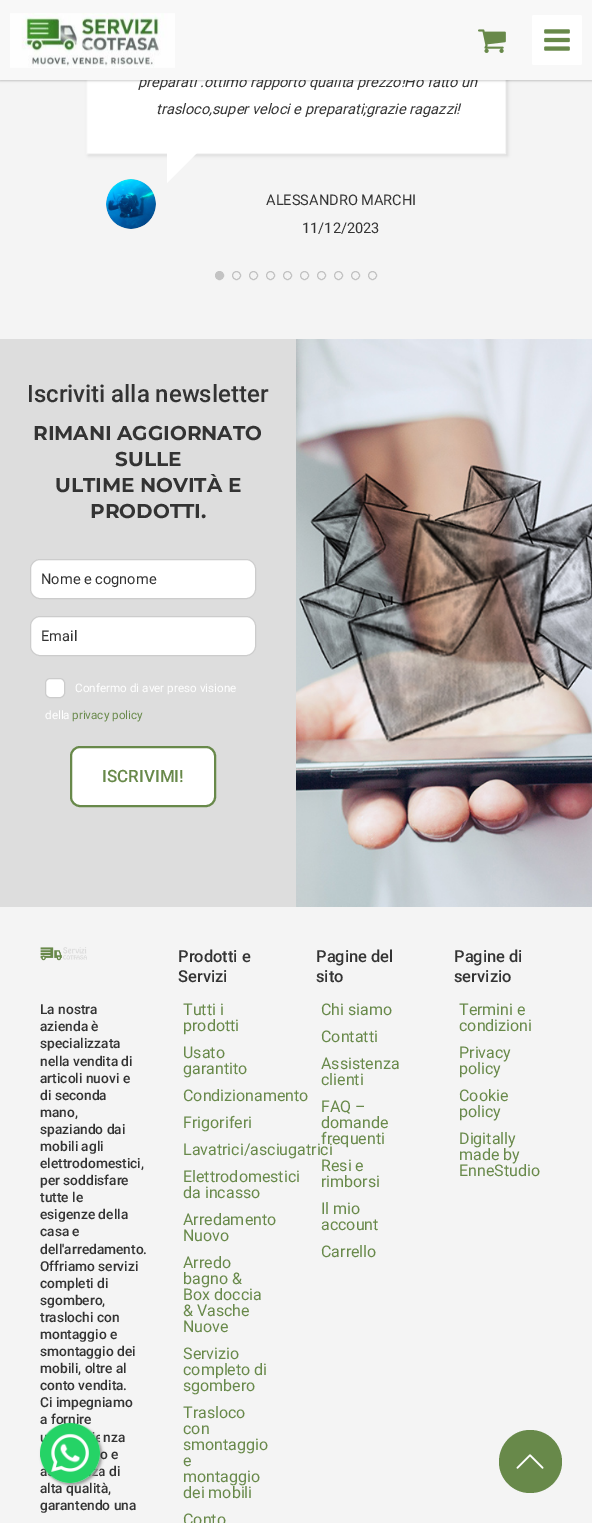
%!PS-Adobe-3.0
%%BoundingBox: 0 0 592 1523
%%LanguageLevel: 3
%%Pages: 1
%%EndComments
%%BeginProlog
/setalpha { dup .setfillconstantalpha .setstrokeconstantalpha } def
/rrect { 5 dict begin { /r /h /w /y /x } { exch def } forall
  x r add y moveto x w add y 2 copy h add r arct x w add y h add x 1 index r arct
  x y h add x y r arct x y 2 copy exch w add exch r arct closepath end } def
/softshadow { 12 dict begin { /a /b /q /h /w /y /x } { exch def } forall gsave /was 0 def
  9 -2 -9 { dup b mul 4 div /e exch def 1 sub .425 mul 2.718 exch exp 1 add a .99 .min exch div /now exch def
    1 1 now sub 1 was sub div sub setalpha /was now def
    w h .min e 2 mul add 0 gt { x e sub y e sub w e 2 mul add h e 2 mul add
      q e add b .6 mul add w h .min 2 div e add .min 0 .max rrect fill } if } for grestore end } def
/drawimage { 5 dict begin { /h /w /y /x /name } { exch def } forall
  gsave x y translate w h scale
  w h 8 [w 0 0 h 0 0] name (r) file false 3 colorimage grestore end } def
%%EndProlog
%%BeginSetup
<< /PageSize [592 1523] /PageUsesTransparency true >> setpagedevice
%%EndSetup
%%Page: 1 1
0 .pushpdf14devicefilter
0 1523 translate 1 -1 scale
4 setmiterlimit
0.957 setgray
0 0 592 1523 rectfill
0 setgray
88 23 420 133 0 1.5 0.09 softshadow
1 setgray
87 80 418 73 rectfill
0.961 setgray
86.5 21.5 419 132 rectstroke
0 setgray
0 1 592 80 0 1 0.2 softshadow
1 setgray
newpath 167 153 moveto 197 153 lineto 167 183 lineto closepath fill
(images/4.raw) 106 179 50 50 drawimage
0.765 setgray
newpath 219.5 275.5 4 0 360 arc closepath gsave fill grestore
stroke
newpath 236.5 275.5 4 0 360 arc closepath stroke
newpath 253.5 275.5 4 0 360 arc closepath stroke
newpath 270.5 275.5 4 0 360 arc closepath stroke
newpath 287.5 275.5 4 0 360 arc closepath stroke
newpath 304.5 275.5 4 0 360 arc closepath stroke
newpath 321.5 275.5 4 0 360 arc closepath stroke
newpath 338.5 275.5 4 0 360 arc closepath stroke
newpath 355.5 275.5 4 0 360 arc closepath stroke
newpath 372.5 275.5 4 0 360 arc closepath stroke
0.867 setgray
0 339 296 568 rectfill
1 setgray
30.5 559.5 225 39 9.5 rrect gsave fill grestore
0.8 setgray
stroke
1 setgray
30.5 616.5 225 39 9.5 rrect gsave fill grestore
0.8 setgray
stroke
1 setgray
45.5 678.5 19 19 4.5 rrect gsave fill grestore
0.8 setgray
stroke
1 setgray
71 747 144 59 9 rrect gsave fill grestore
0.408 0.537 0.29 setrgbcolor
2 setlinewidth
stroke
(images/5.raw) 296 339 296 568 drawimage
(images/6.raw) 40 947 47 14 drawimage
0.6 setgray
42 1425 60 60 30 1.5 1 softshadow
0.408 0.537 0.29 setrgbcolor
newpath 530 1493 moveto 513 1493 499 1479 499 1462 curveto 499 1444 513 1430 530 1430 curveto 548 1430 562 1444 562 1462 curveto 562 1479 548 1493 530 1493 curveto closepath fill
(images/8.raw) 516 1454 28 15 drawimage
/Roboto-Italic [14.6 0 0 -14.6 0 0] selectfont
0.2 setgray
138 87 moveto (preparati .ottimo rapporto qualità prezzo!Ho fatto un) show
0.973 setgray
0 0 592 80 rectfill
(images/2.raw) 478 29 28 24 drawimage
1 setgray
532 15 50 50 2 rrect fill
(images/3.raw) 544 29 26 22 drawimage
(images/1.raw) 10 13 165 55 drawimage
0.2 setgray
156 114 moveto (trasloco,super veloci e preparati;grazie ragazzi!) show
/Roboto-Regular [14.6 0 0 -14.6 0 0] selectfont
266 205 moveto (ALESSANDRO MARCHI) show
302 233 moveto (11/12/2023) show
/Roboto-Medium [24 0 0 -24 0 0] selectfont
27 402 moveto (Iscriviti alla newsletter) show
/Montserrat-Thin [20 0 0 -20 0 0] selectfont
33 440 moveto (RIMANI AGGIORNATO) show
115 466 moveto (SULLE) show
55 492 moveto (ULTIME NOVITÀ E) show
90 518 moveto (PRODOTTI.) show
/Roboto-Regular [14.6 0 0 -14.6 0 0] selectfont
41 584 moveto (Nome e cognome) show
41 641 moveto (Email) show
/Roboto-Regular [11.7 0 0 -11.7 0 0] selectfont
1 setgray
75 692 moveto (Confermo di aver preso visione) show
45 719 moveto (della) show
0.408 0.537 0.29 setrgbcolor
72 719 moveto (privacy policy) show
/Roboto-Medium [17 0 0 -17 0 0] selectfont
102 782 moveto (ISCRIVIMI!) show
/Roboto-Medium [13.75 0 0 -13.75 0 0] selectfont
0.2 setgray
40 1014 moveto (La nostra) show
40 1031 moveto (azienda è) show
40 1048 moveto (specializzata) show
40 1066 moveto (nella vendita di) show
40 1083 moveto (articoli nuovi e) show
40 1100 moveto (di seconda) show
40 1117 moveto (mano,) show
40 1134 moveto (spaziando dai) show
40 1151 moveto (mobili agli) show
40 1168 moveto (elettrodomestici,) show
40 1185 moveto (per soddisfare) show
40 1202 moveto (tutte le) show
40 1219 moveto (esigenze della) show
40 1236 moveto (casa e) show
40 1254 moveto (dell'arredamento.) show
40 1271 moveto (Offriamo servizi) show
40 1288 moveto (completi di) show
40 1305 moveto (sgombero,) show
40 1322 moveto (traslochi con) show
40 1339 moveto (montaggio e) show
40 1356 moveto (smontaggio dei) show
40 1373 moveto (mobili, oltre al) show
40 1390 moveto (conto vendita.) show
40 1407 moveto (Ci impegniamo) show
40 1424 moveto (a fornire) show
103 1442 moveto (nza) show
100 1459 moveto (o e) show
40 1476 moveto (a) show
98 1476 moveto (a di) show
40 1493 moveto (alta qualità,) show
40 1510 moveto (garantendo una) show
/Roboto-Medium [16.5 0 0 -16.5 0 0] selectfont
178 962 moveto (Prodotti e) show
178 982 moveto (Servizi) show
/Roboto-Regular [16 0 0 -16 0 0] selectfont
0.408 0.537 0.29 setrgbcolor
183 1015 moveto (Tutti i) show
183 1031 moveto (prodotti) show
183 1058 moveto (Usato) show
183 1074 moveto (garantito) show
183 1101 moveto (Condizionamento) show
183 1128 moveto (Frigoriferi) show
183 1155 moveto (Lavatrici/asciugatrici) show
183 1182 moveto (Elettrodomestici) show
183 1198 moveto (da incasso) show
183 1225 moveto (Arredamento) show
183 1241 moveto (Nuovo) show
183 1268 moveto (Arredo) show
183 1284 moveto (bagno &) show
183 1300 moveto (Box doccia) show
183 1316 moveto (& Vasche) show
183 1332 moveto (Nuove) show
183 1359 moveto (Servizio) show
183 1375 moveto (completo di) show
183 1391 moveto (sgombero) show
183 1418 moveto (Trasloco) show
183 1434 moveto (con) show
183 1450 moveto (smontaggio) show
183 1466 moveto (e) show
183 1482 moveto (montaggio) show
183 1498 moveto (dei mobili) show
183 1525 moveto (Conto) show
/Roboto-Medium [16.5 0 0 -16.5 0 0] selectfont
0.2 setgray
316 962 moveto (Pagine del) show
316 982 moveto (sito) show
/Roboto-Regular [16 0 0 -16 0 0] selectfont
0.408 0.537 0.29 setrgbcolor
321 1015 moveto (Chi siamo) show
321 1042 moveto (Contatti) show
321 1069 moveto (Assistenza) show
321 1085 moveto (clienti) show
321 1112 moveto (FAQ –) show
321 1128 moveto (domande) show
321 1144 moveto (frequenti) show
321 1171 moveto (Resi e) show
321 1187 moveto (rimborsi) show
321 1214 moveto (Il mio) show
321 1230 moveto (account) show
321 1257 moveto (Carrello) show
/Roboto-Medium [16.5 0 0 -16.5 0 0] selectfont
0.2 setgray
454 962 moveto (Pagine di) show
454 982 moveto (servizio) show
/Roboto-Regular [16 0 0 -16 0 0] selectfont
0.408 0.537 0.29 setrgbcolor
459 1015 moveto (Termini e) show
459 1031 moveto (condizioni) show
459 1058 moveto (Privacy) show
459 1074 moveto (policy) show
459 1101 moveto (Cookie) show
459 1117 moveto (policy) show
459 1144 moveto (Digitally) show
459 1160 moveto (made by) show
459 1176 moveto (EnneStudio) show
(images/7.raw) 40 1423 60 60 drawimage
.poppdf14devicefilter showpage
%%EOF
